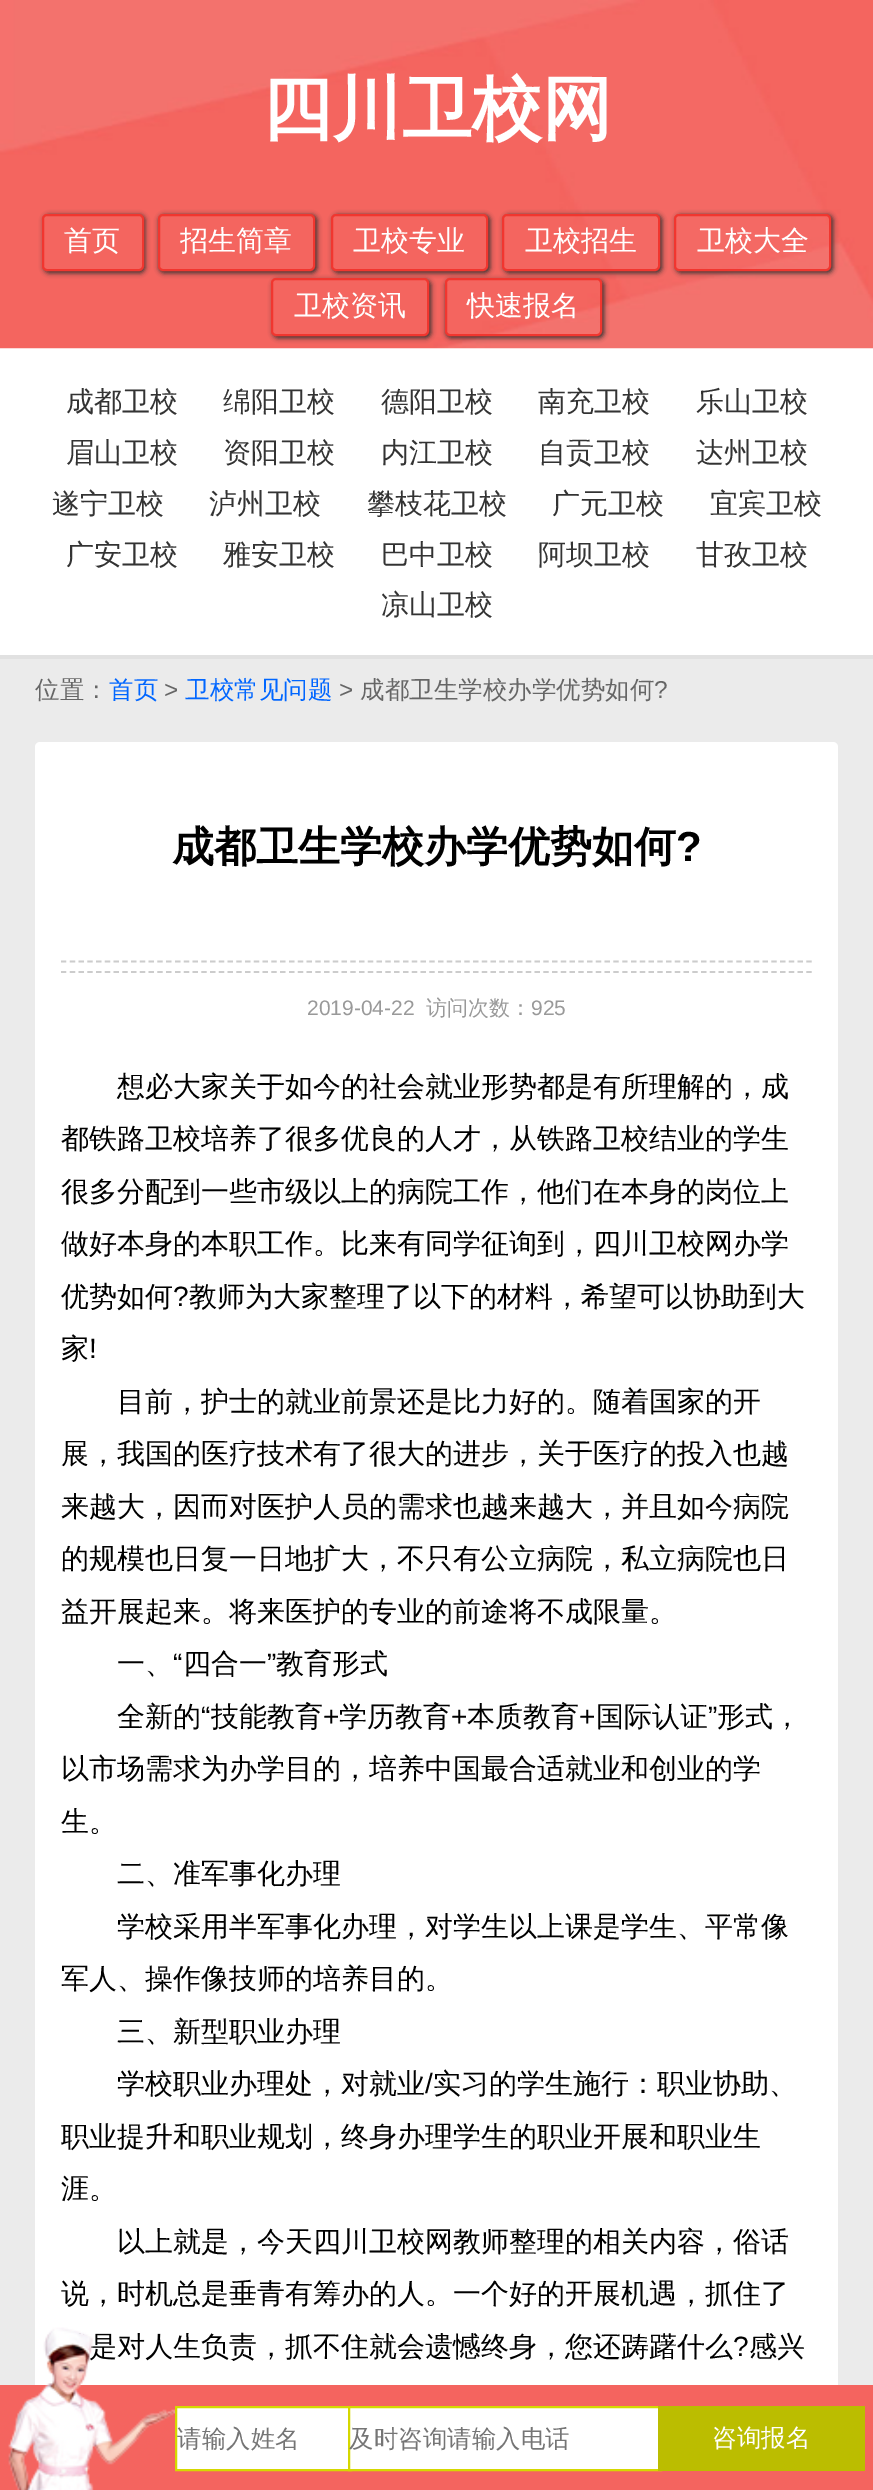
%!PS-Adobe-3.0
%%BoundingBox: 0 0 873 2490
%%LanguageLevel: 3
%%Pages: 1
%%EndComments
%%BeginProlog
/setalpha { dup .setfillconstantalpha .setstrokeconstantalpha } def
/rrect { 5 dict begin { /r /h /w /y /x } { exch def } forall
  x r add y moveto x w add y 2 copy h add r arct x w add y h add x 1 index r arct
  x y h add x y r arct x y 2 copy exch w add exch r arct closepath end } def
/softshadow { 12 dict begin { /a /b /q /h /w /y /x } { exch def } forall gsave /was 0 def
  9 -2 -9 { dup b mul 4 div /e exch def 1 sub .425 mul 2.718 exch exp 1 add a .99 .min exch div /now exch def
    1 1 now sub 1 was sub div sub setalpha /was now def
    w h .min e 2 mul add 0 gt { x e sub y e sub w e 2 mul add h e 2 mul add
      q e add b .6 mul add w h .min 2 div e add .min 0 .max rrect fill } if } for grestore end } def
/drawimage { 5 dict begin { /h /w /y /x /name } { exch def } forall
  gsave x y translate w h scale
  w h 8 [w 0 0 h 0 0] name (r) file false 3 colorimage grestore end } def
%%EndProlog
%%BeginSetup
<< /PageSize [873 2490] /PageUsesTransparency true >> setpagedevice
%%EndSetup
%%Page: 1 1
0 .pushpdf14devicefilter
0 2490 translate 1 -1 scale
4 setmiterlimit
0.922 setgray
0 0 873 2490 rectfill
1 setgray
0 348 873 307 rectfill
(images/1.raw) 0 0 873 349 drawimage
gsave
newpath 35 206 moveto 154 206 lineto 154 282 lineto 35 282 lineto closepath 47 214 moveto 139 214 lineto 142 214 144 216 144 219 curveto 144 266 lineto 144 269 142 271 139 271 curveto 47 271 lineto 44 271 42 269 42 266 curveto 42 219 lineto 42 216 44 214 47 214 curveto closepath eoclip newpath
0.2 setgray
44 215 101 58 5 2.5 1 softshadow
grestore
0.945 0.212 0.184 setrgbcolor
2 setlinewidth
43 215 100 55 4 rrect stroke
gsave
newpath 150 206 moveto 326 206 lineto 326 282 lineto 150 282 lineto closepath 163 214 moveto 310 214 lineto 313 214 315 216 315 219 curveto 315 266 lineto 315 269 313 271 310 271 curveto 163 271 lineto 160 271 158 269 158 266 curveto 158 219 lineto 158 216 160 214 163 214 curveto closepath eoclip newpath
0.2 setgray
159 215 158 58 5 2.5 1 softshadow
grestore
159 215 155 55 4 rrect stroke
gsave
newpath 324 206 moveto 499 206 lineto 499 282 lineto 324 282 lineto closepath 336 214 moveto 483 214 lineto 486 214 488 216 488 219 curveto 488 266 lineto 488 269 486 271 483 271 curveto 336 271 lineto 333 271 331 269 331 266 curveto 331 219 lineto 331 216 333 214 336 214 curveto closepath eoclip newpath
0.2 setgray
333 215 157 58 5 2.5 1 softshadow
grestore
332 215 155 55 4 rrect stroke
gsave
newpath 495 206 moveto 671 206 lineto 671 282 lineto 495 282 lineto closepath 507 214 moveto 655 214 lineto 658 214 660 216 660 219 curveto 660 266 lineto 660 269 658 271 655 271 curveto 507 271 lineto 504 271 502 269 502 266 curveto 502 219 lineto 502 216 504 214 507 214 curveto closepath eoclip newpath
0.2 setgray
504 215 158 58 5 2.5 1 softshadow
grestore
503 215 156 55 4 rrect stroke
gsave
newpath 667 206 moveto 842 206 lineto 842 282 lineto 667 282 lineto closepath 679 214 moveto 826 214 lineto 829 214 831 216 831 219 curveto 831 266 lineto 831 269 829 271 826 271 curveto 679 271 lineto 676 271 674 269 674 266 curveto 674 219 lineto 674 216 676 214 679 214 curveto closepath eoclip newpath
0.2 setgray
676 215 157 58 5 2.5 1 softshadow
grestore
675 215 155 55 4 rrect stroke
gsave
newpath 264 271 moveto 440 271 lineto 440 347 lineto 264 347 lineto closepath 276 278 moveto 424 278 lineto 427 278 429 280 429 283 curveto 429 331 lineto 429 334 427 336 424 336 curveto 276 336 lineto 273 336 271 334 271 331 curveto 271 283 lineto 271 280 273 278 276 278 curveto closepath eoclip newpath
0.2 setgray
273 280 158 58 5 2.5 1 softshadow
grestore
272 279 156 56 4 rrect stroke
gsave
newpath 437 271 moveto 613 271 lineto 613 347 lineto 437 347 lineto closepath 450 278 moveto 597 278 lineto 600 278 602 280 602 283 curveto 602 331 lineto 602 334 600 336 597 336 curveto 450 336 lineto 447 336 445 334 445 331 curveto 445 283 lineto 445 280 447 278 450 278 curveto closepath eoclip newpath
0.2 setgray
446 280 158 58 5 2.5 1 softshadow
grestore
446 279 155 56 4 rrect stroke
0.882 setgray
0 655 873 4 rectfill
1 setgray
35 742 803 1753 5 rrect fill
0.8 setgray
1.8 setlinewidth
[5.25 3.52] 0 setdash
newpath 61 961.5 moveto 812 961.5 lineto stroke
newpath 61 972 moveto 812 972 lineto stroke
0.957 0.392 0.373 setrgbcolor
0 2385 873 105 rectfill
1 setgray
177 2408 171 61 rectfill
0.835 0.847 0 setrgbcolor
2 setlinewidth
[] 0 setdash
176 2407 175 63 rectstroke
1 setgray
350 2408 308 61 rectfill
0.835 0.847 0 setrgbcolor
349 2407 312 63 rectstroke
0.733 0.741 0 setrgbcolor
658 2406 207 65 rectfill
/WenQuanYiZenHei-Bold [70 0 0 -70 0 0] selectfont
1 setgray
262 133 moveto (四川卫校网) show
/WenQuanYiZenHei-Medium [28 0 0 -28 0 0] selectfont
64 250 moveto (首页) show
180 250 moveto (招生简章) show
353 250 moveto (卫校专业) show
525 250 moveto (卫校招生) show
697 250 moveto (卫校大全) show
294 315 moveto (卫校资讯) show
467 315 moveto (快速报名) show
0.2 setgray
66 411 moveto (成都卫校) show
223 411 moveto (绵阳卫校) show
381 411 moveto (德阳卫校) show
538 411 moveto (南充卫校) show
696 411 moveto (乐山卫校) show
66 462 moveto (眉山卫校) show
223 462 moveto (资阳卫校) show
381 462 moveto (内江卫校) show
538 462 moveto (自贡卫校) show
696 462 moveto (达州卫校) show
52 513 moveto (遂宁卫校) show
209 513 moveto (泸州卫校) show
367 513 moveto (攀枝花卫校) show
552 513 moveto (广元卫校) show
710 513 moveto (宜宾卫校) show
66 564 moveto (广安卫校) show
223 564 moveto (雅安卫校) show
381 564 moveto (巴中卫校) show
538 564 moveto (阿坝卫校) show
696 564 moveto (甘孜卫校) show
381 614 moveto (凉山卫校) show
/WenQuanYiZenHei-Medium [24.5 0 0 -24.5 0 0] selectfont
0.4 setgray
35 698 moveto (位置：) show
0 0.4 1 setrgbcolor
109 698 moveto (首页) show
/LiberationSans-Regular [24.5 0 0 -24.5 0 0] selectfont
0.4 setgray
164 698 moveto (>) show
/WenQuanYiZenHei-Medium [24.5 0 0 -24.5 0 0] selectfont
0 0.4 1 setrgbcolor
185 698 moveto (卫校常见问题) show
/LiberationSans-Regular [24.5 0 0 -24.5 0 0] selectfont
0.4 setgray
339 698 moveto (>) show
/WenQuanYiZenHei-Medium [24.5 0 0 -24.5 0 0] selectfont
360 698 moveto (成都卫生学校办学优势如何) show
/LiberationSans-Regular [24.5 0 0 -24.5 0 0] selectfont
654 698 moveto (?) show
/WenQuanYiZenHei-Bold [42 0 0 -42 0 0] selectfont
0 setgray
172 861 moveto (成都卫生学校办学优势如何) show
/LiberationSans-Bold [42 0 0 -42 0 0] selectfont
676 861 moveto (?) show
/LiberationSans-Regular [21 0 0 -21 0 0] selectfont
0.6 setgray
307 1015 moveto (2019-04-22) show
/WenQuanYiZenHei-Medium [21 0 0 -21 0 0] selectfont
426 1015 moveto (访问次数：) show
/LiberationSans-Regular [21 0 0 -21 0 0] selectfont
531 1015 moveto (925) show
/WenQuanYiZenHei-Medium [28 0 0 -28 0 0] selectfont
0 setgray
117 1096 moveto (想必大家关于如今的社会就业形势都是有所理解的，成) show
61 1148 moveto (都铁路卫校培养了很多优良的人才，从铁路卫校结业的学生) show
61 1201 moveto (很多分配到一些市级以上的病院工作，他们在本身的岗位上) show
61 1253 moveto (做好本身的本职工作。比来有同学征询到，四川卫校网办学) show
61 1306 moveto (优势如何) show
/LiberationSans-Regular [28 0 0 -28 0 0] selectfont
173 1306 moveto (?) show
/WenQuanYiZenHei-Medium [28 0 0 -28 0 0] selectfont
189 1306 moveto (教师为大家整理了以下的材料，希望可以协助到大) show
61 1358 moveto (家) show
/LiberationSans-Regular [28 0 0 -28 0 0] selectfont
89 1358 moveto (!) show
/WenQuanYiZenHei-Medium [28 0 0 -28 0 0] selectfont
117 1411 moveto (目前，护士的就业前景还是比力好的。随着国家的开) show
61 1463 moveto (展，我国的医疗技术有了很大的进步，关于医疗的投入也越) show
61 1516 moveto (来越大，因而对医护人员的需求也越来越大，并且如今病院) show
61 1568 moveto (的规模也日复一日地扩大，不只有公立病院，私立病院也日) show
61 1621 moveto (益开展起来。将来医护的专业的前途将不成限量。) show
/LiberationSans-Regular [28 0 0 -28 0 0] selectfont
173 1673 moveto (“) show
/WenQuanYiZenHei-Medium [28 0 0 -28 0 0] selectfont
183 1673 moveto (四合一) show
/LiberationSans-Regular [28 0 0 -28 0 0] selectfont
267 1673 moveto (”) show
/WenQuanYiZenHei-Medium [28 0 0 -28 0 0] selectfont
276 1673 moveto (教育形式) show
117 1673 moveto (一、) show
117 1726 moveto (全新的) show
/LiberationSans-Regular [28 0 0 -28 0 0] selectfont
201 1726 moveto (“) show
/WenQuanYiZenHei-Medium [28 0 0 -28 0 0] selectfont
211 1726 moveto (技能教育) show
/LiberationSans-Regular [28 0 0 -28 0 0] selectfont
323 1726 moveto (+) show
/WenQuanYiZenHei-Medium [28 0 0 -28 0 0] selectfont
339 1726 moveto (学历教育) show
/LiberationSans-Regular [28 0 0 -28 0 0] selectfont
451 1726 moveto (+) show
/WenQuanYiZenHei-Medium [28 0 0 -28 0 0] selectfont
467 1726 moveto (本质教育) show
/LiberationSans-Regular [28 0 0 -28 0 0] selectfont
579 1726 moveto (+) show
/WenQuanYiZenHei-Medium [28 0 0 -28 0 0] selectfont
596 1726 moveto (国际认证) show
/LiberationSans-Regular [28 0 0 -28 0 0] selectfont
708 1726 moveto (”) show
/WenQuanYiZenHei-Medium [28 0 0 -28 0 0] selectfont
717 1726 moveto (形式，) show
61 1778 moveto (以市场需求为办学目的，培养中国最合适就业和创业的学) show
61 1831 moveto (生。) show
117 1883 moveto (二、准军事化办理) show
117 1936 moveto (学校采用半军事化办理，对学生以上课是学生、平常像) show
61 1988 moveto (军人、操作像技师的培养目的。) show
117 2041 moveto (三、新型职业办理) show
117 2093 moveto (学校职业办理处，对就业) show
/LiberationSans-Regular [28 0 0 -28 0 0] selectfont
425 2093 moveto (/) show
/WenQuanYiZenHei-Medium [28 0 0 -28 0 0] selectfont
433 2093 moveto (实习的学生施行：职业协助、) show
61 2146 moveto (职业提升和职业规划，终身办理学生的职业开展和职业生) show
61 2198 moveto (涯。) show
117 2251 moveto (以上就是，今天四川卫校网教师整理的相关内容，俗话) show
61 2303 moveto (说，时机总是垂青有筹办的人。一个好的开展机遇，抓住了) show
89 2356 moveto (是对人生负责，抓不住就会遗憾终身，您还踌躇什么) show
/LiberationSans-Regular [28 0 0 -28 0 0] selectfont
733 2356 moveto (?) show
/WenQuanYiZenHei-Medium [28 0 0 -28 0 0] selectfont
749 2356 moveto (感兴) show
(images/2.raw) 8 2327 167 163 drawimage
/WenQuanYiZenHei-Medium [24.5 0 0 -24.5 0 0] selectfont
0.459 setgray
177 2447 moveto (请输入姓名) show
349 2447 moveto (及时咨询请输入电话) show
1 setgray
712 2446 moveto (咨询报名) show
.poppdf14devicefilter showpage
%%EOF
